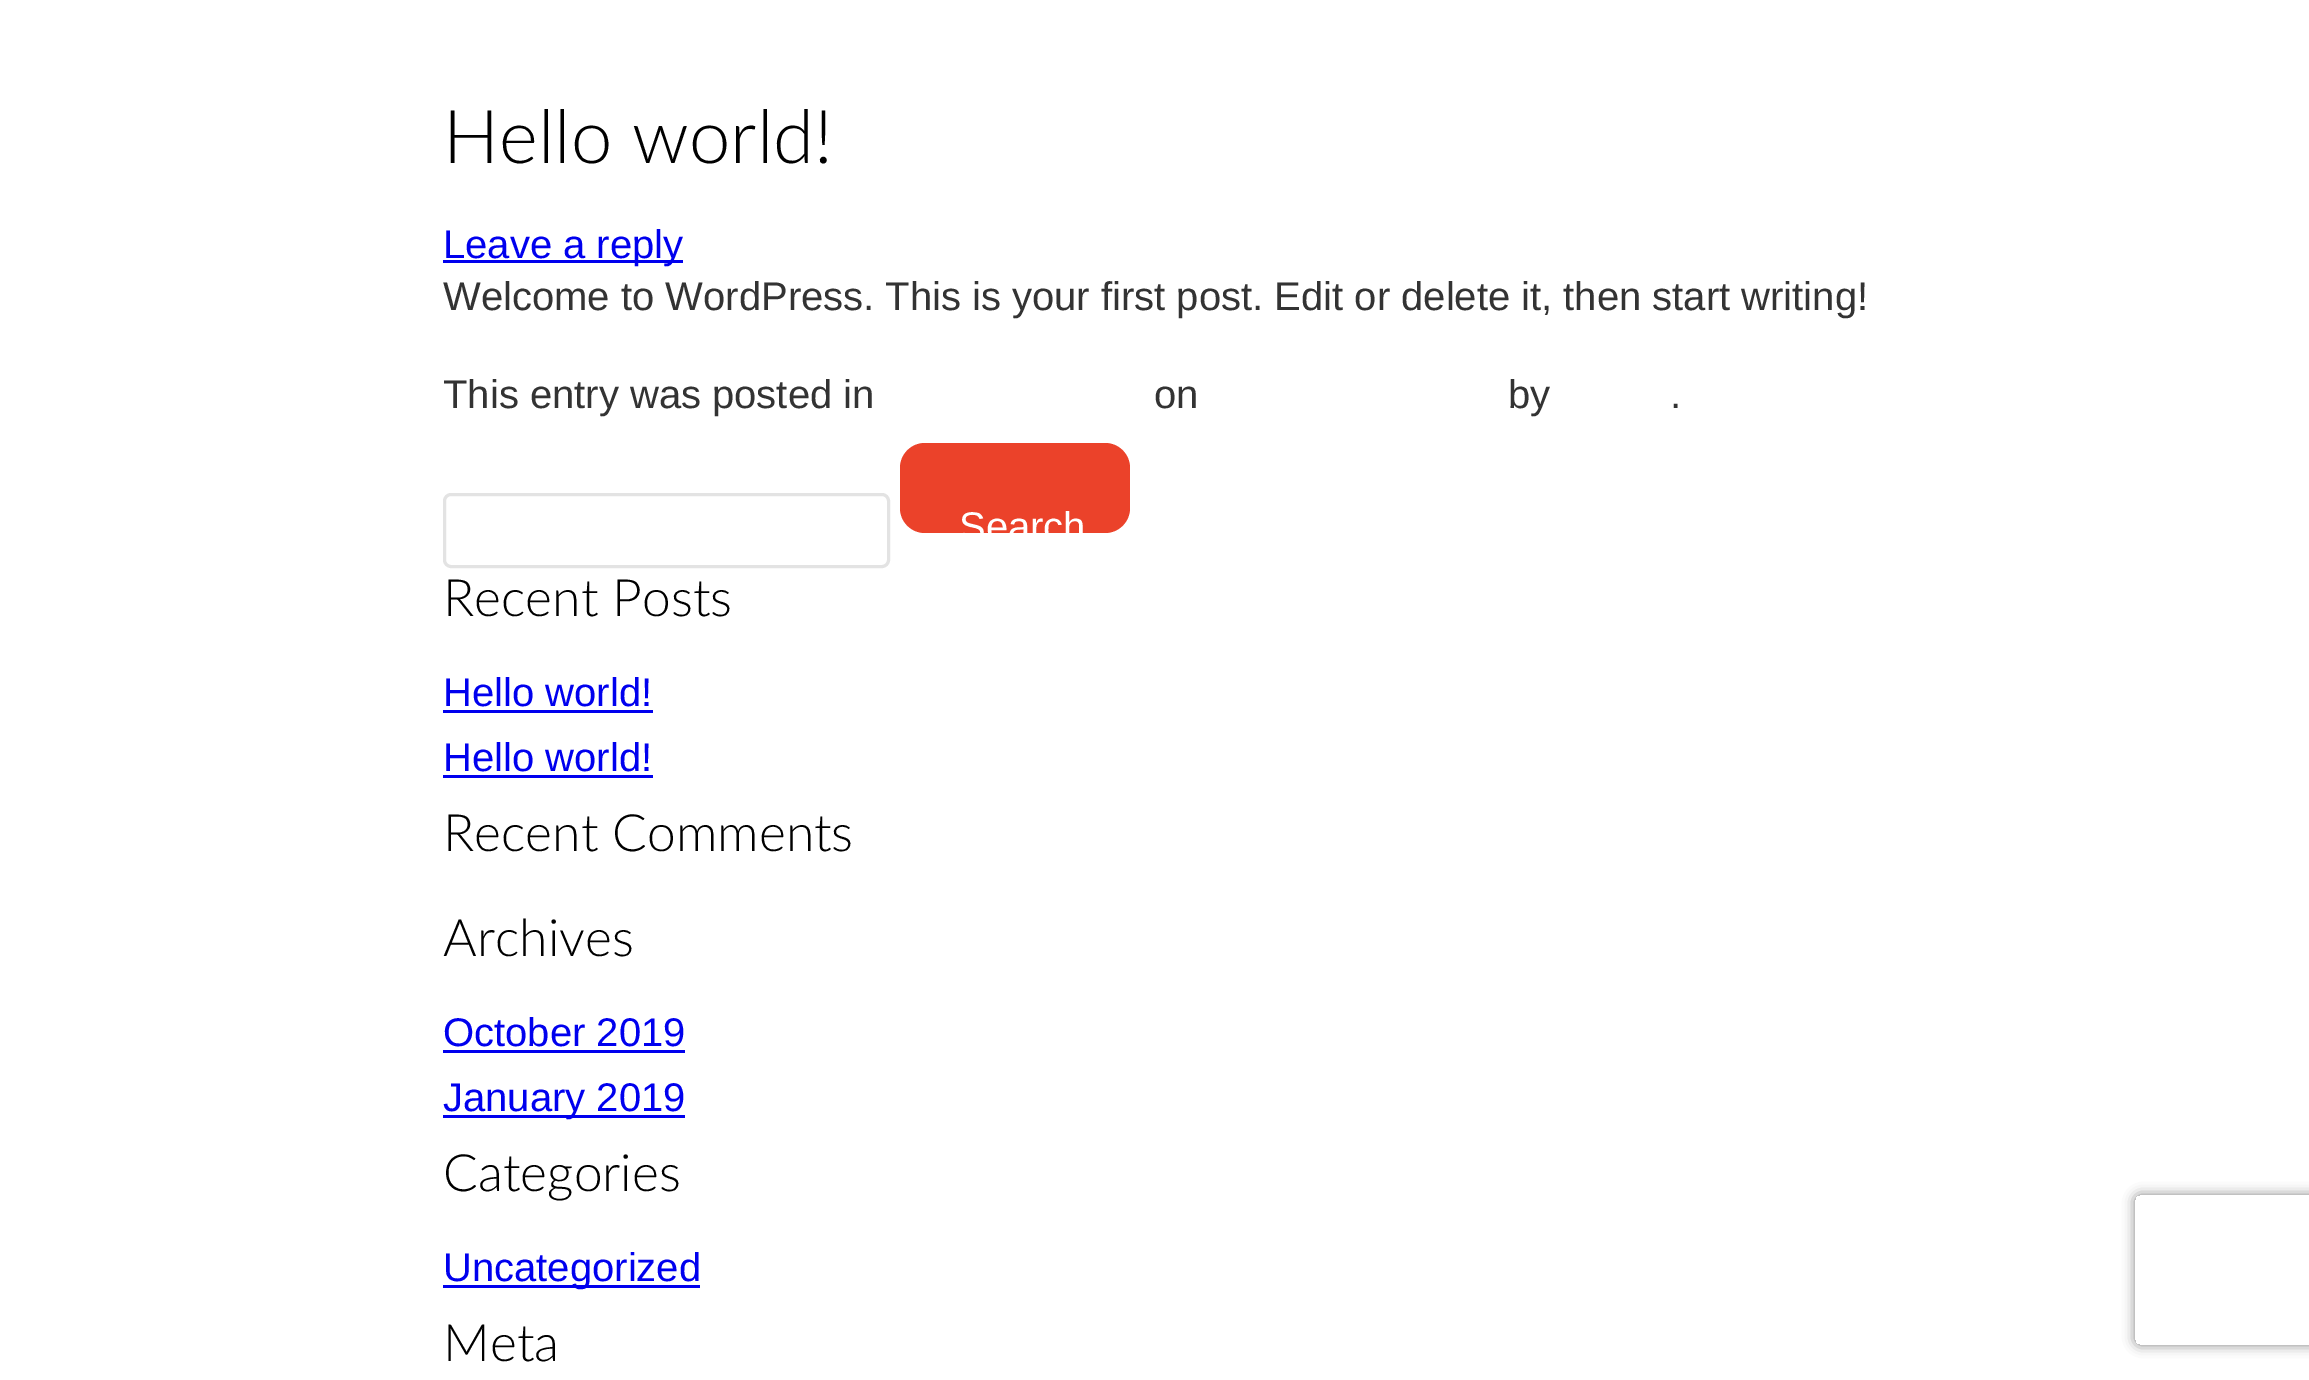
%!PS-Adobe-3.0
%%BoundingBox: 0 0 2309 1380
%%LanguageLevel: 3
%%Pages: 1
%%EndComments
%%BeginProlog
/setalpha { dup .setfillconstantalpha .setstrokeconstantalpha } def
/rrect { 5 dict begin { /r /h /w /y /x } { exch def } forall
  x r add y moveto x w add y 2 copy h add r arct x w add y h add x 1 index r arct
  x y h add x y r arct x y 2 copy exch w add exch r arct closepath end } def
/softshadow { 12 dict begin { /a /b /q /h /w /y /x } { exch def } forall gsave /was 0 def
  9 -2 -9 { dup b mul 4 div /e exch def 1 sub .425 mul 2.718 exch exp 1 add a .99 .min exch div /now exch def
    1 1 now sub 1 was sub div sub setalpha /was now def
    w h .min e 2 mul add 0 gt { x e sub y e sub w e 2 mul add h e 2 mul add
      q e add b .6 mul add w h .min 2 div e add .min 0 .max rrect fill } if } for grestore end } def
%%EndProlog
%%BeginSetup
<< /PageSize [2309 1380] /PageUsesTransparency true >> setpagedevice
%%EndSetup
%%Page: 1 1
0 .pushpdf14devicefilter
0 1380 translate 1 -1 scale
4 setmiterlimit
1 setgray
0 0 2309 1380 rectfill
0 0 0.933 setrgbcolor
443 260 240 3 rectfill
0.89 setgray
3 setlinewidth
444.5 494.5 444 72 6.5 rrect stroke
0.922 0.259 0.165 setrgbcolor
900 443 230 90 25 rrect fill
0 0 0.933 setrgbcolor
443 710 210 3 rectfill
443 775 210 3 rectfill
443 1050 242 3 rectfill
443 1115 242 3 rectfill
443 1285 257 3 rectfill
gsave
newpath 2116 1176 moveto 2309 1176 lineto 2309 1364 lineto 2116 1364 lineto closepath 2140 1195 moveto 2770 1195 lineto 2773 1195 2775 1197 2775 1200 curveto 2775 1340 lineto 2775 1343 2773 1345 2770 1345 curveto 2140 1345 lineto 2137 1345 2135 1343 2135 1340 curveto 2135 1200 lineto 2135 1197 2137 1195 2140 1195 curveto closepath eoclip newpath
0.502 setgray
2135 1195 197 150 5 6 1 softshadow
grestore
/Lato-Light [74.25 0 0 -74.25 0 0] selectfont
0 setgray
443 163 moveto (Hello world!) show
/LiberationSans-Regular [40 0 0 -40 0 0] selectfont
0 0 0.933 setrgbcolor
443 258 moveto (Leave a reply) show
0.2 setgray
443 310 moveto (Welcome to WordPress. This is your first post. Edit or delete it, then start writing!) show
443 408 moveto (This entry was posted in) show
1154 408 moveto (on) show
1508 408 moveto (by) show
1670 408 moveto (.) show
gsave
900 443 230 90 25 rrect clip newpath
1 setgray
959 540 moveto (Search) show
grestore
/Lato-Light [51.5 0 0 -51.5 0 0] selectfont
0 setgray
443 616 moveto (Recent Posts) show
/LiberationSans-Regular [40 0 0 -40 0 0] selectfont
0 0 0.933 setrgbcolor
443 706 moveto (Hello world!) show
443 771 moveto (Hello world!) show
/Lato-Light [51.5 0 0 -51.5 0 0] selectfont
0 setgray
443 851 moveto (Recent Comments) show
443 956 moveto (Archives) show
/LiberationSans-Regular [40 0 0 -40 0 0] selectfont
0 0 0.933 setrgbcolor
443 1046 moveto (October 2019) show
443 1111 moveto (January 2019) show
/Lato-Light [51.5 0 0 -51.5 0 0] selectfont
0 setgray
443 1191 moveto (Categories) show
/LiberationSans-Regular [40 0 0 -40 0 0] selectfont
0 0 0.933 setrgbcolor
443 1281 moveto (Uncategorized) show
/Lato-Light [51.5 0 0 -51.5 0 0] selectfont
0 setgray
443 1361 moveto (Meta) show
.poppdf14devicefilter showpage
%%EOF
